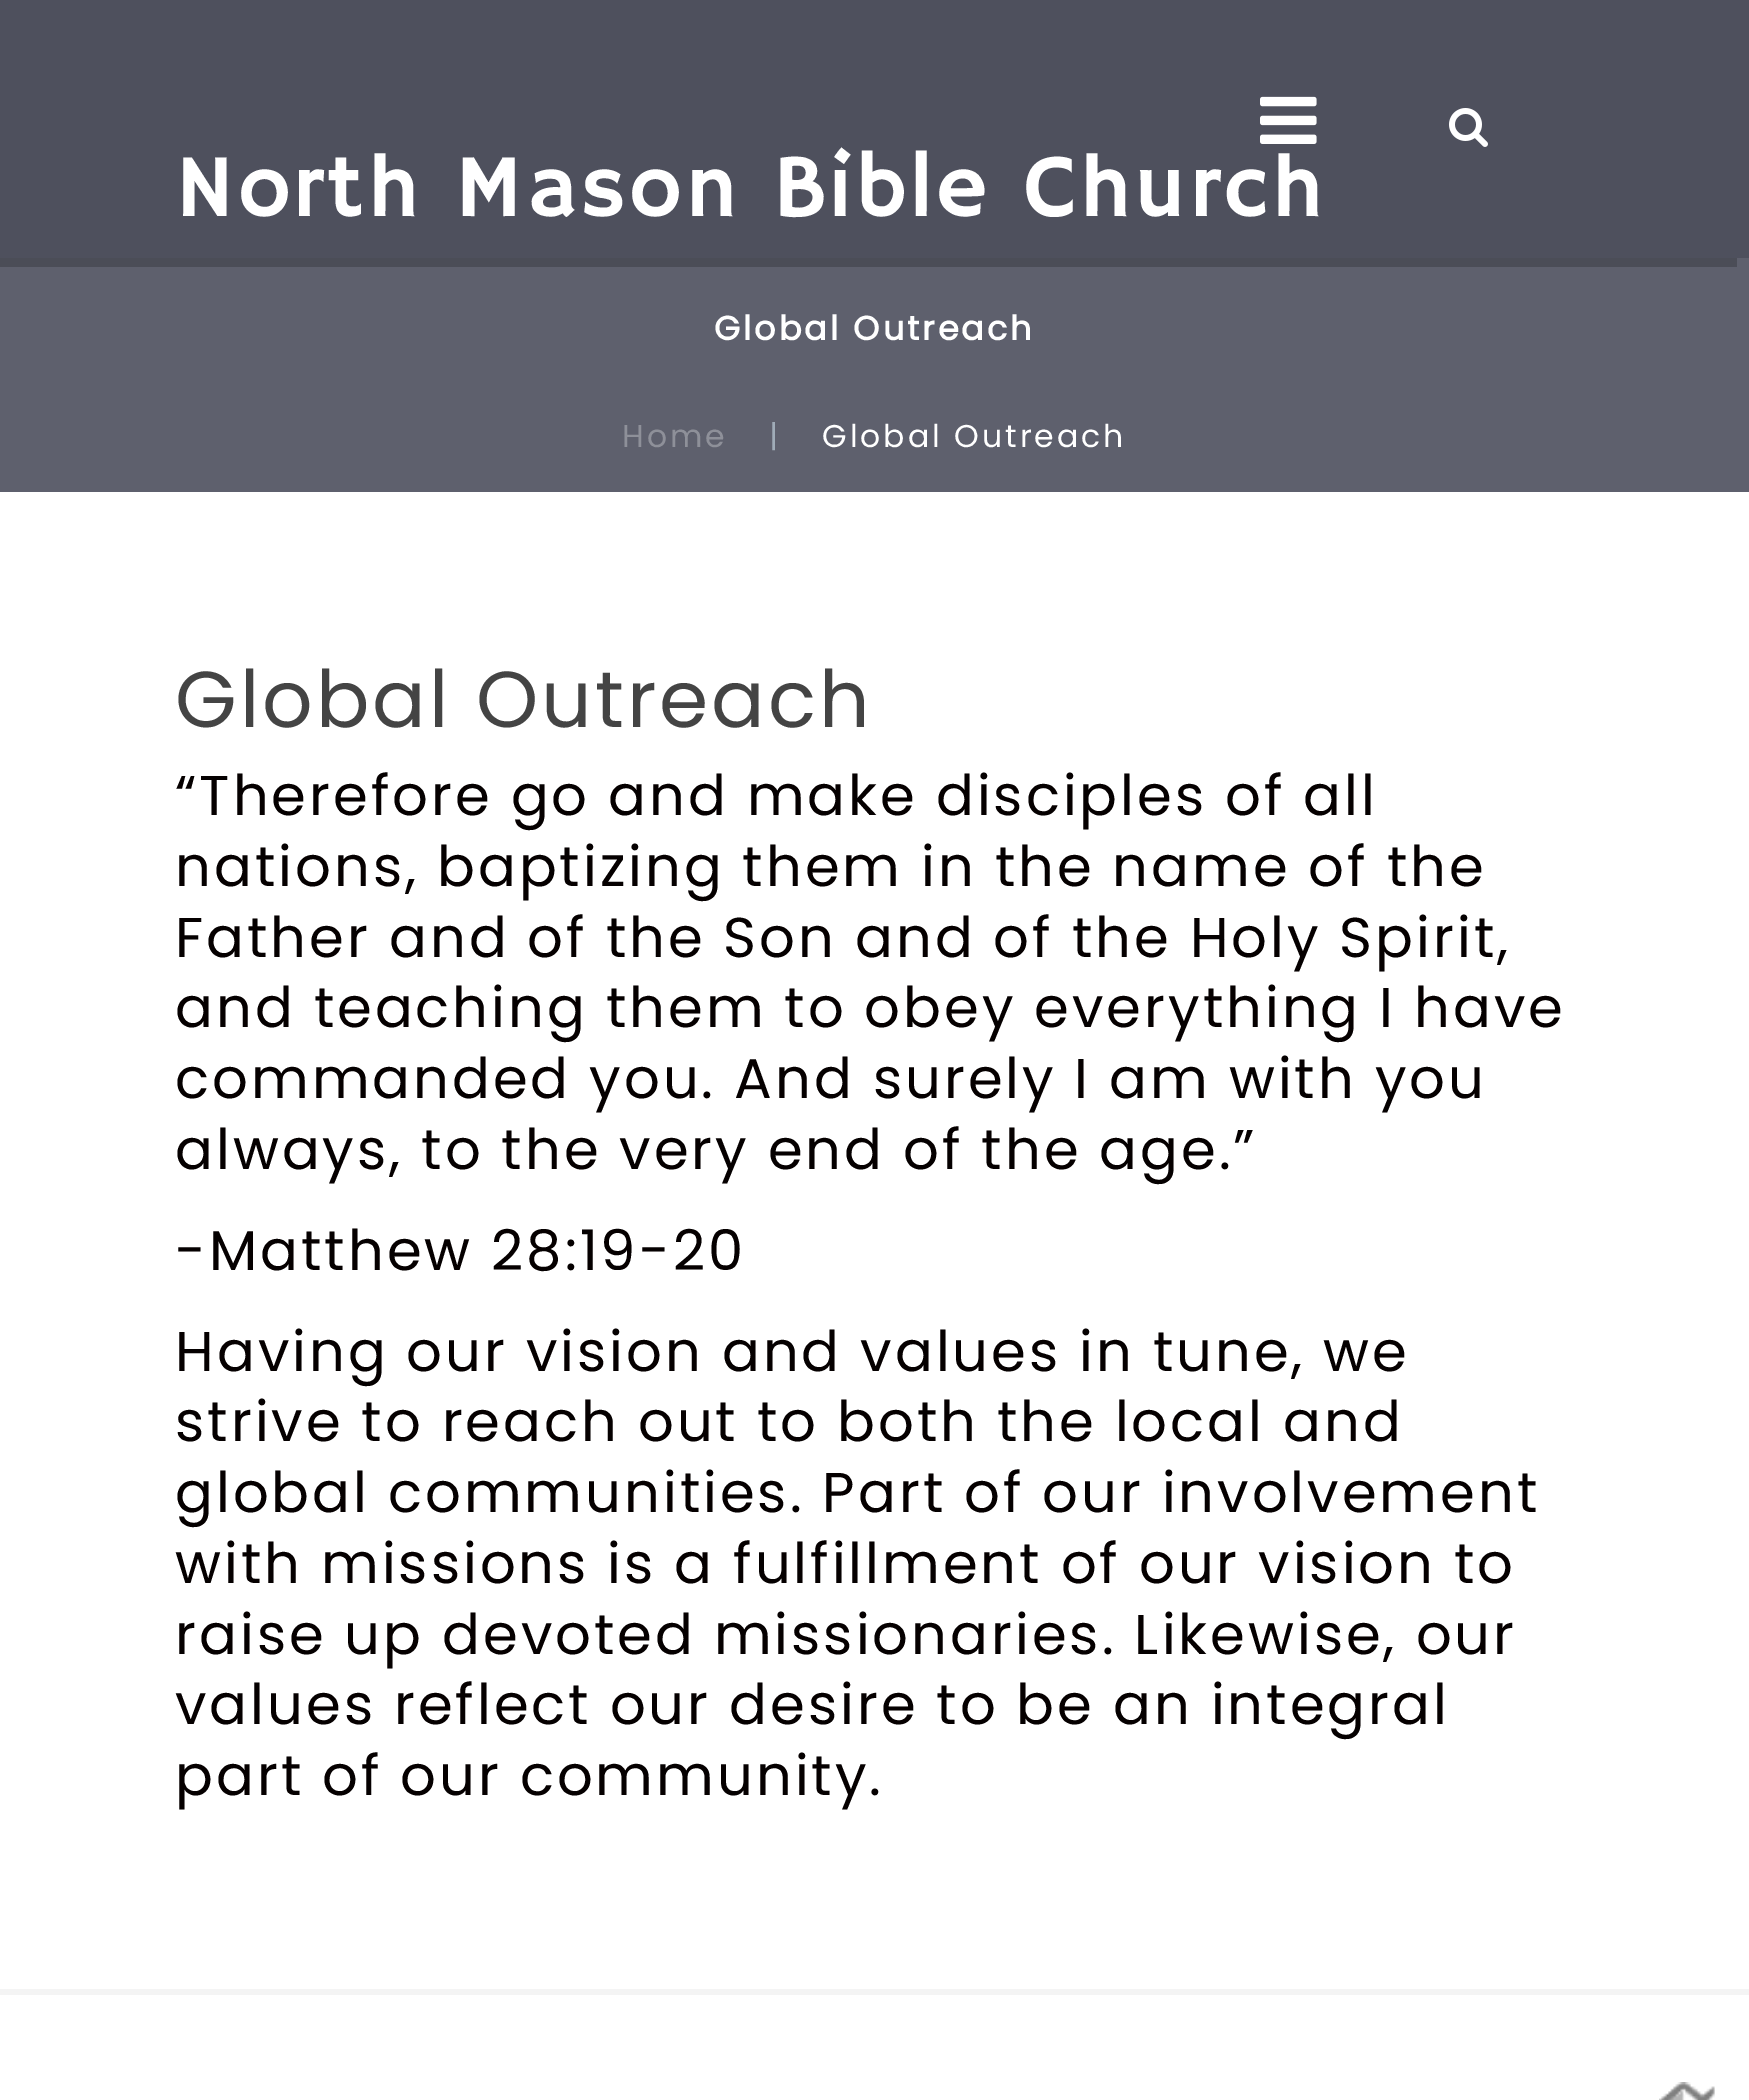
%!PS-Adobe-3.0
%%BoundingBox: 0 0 1749 2100
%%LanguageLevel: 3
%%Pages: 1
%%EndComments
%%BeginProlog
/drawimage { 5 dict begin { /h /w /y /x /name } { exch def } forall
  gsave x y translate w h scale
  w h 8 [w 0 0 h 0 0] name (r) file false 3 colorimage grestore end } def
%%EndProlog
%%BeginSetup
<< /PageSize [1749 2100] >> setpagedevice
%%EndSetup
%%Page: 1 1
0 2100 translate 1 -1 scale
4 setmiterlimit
1 setgray
0 0 1749 2100 rectfill
0.369 0.376 0.427 setrgbcolor
0 258 1749 234 rectfill
0.294 0.302 0.341 setrgbcolor
newpath -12 9 moveto -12 267 lineto 1737 267 lineto 1737 258 lineto 0 258 lineto 0 9 lineto closepath fill
0.306 0.314 0.365 setrgbcolor
0 0 1749 258 rectfill
(images/1.raw) 1260 96 57 48 drawimage
(images/2.raw) 1449 108 39 39 drawimage
0.957 setgray
0 1989 1749 6 rectfill
(images/3.raw) 1659 2082 56 18 drawimage
/HammersmithOne-Regular [90 0 0 -90 0 0] selectfont
1 setgray
175 216 moveto 3 0 (North Mason Bible Church) ashow
/Poppins-Bold [33.5 0 0 -33.5 0 0] selectfont
714 340 moveto 3 0 (Global Outreach) ashow
/Poppins-Regular [31.5 0 0 -31.5 0 0] selectfont
0.557 0.565 0.6 setrgbcolor
622 447 moveto 3 0 (Home) ashow
0.627 0.675 0.722 setrgbcolor
769 447 moveto 3 0 (|) ashow
1 setgray
822 447 moveto 3 0 (Global Outreach) ashow
/Poppins-Regular [79.25 0 0 -79.25 0 0] selectfont
0.267 setgray
175 727 moveto 3 0 (Global Outreach) ashow
/Poppins-Regular [56 0 0 -56 0 0] selectfont
0.02 0 0 setrgbcolor
175 815 moveto 3 0 (“Therefore go and make disciples of all) ashow
175 886 moveto 3 0 (nations, baptizing them in the name of the) ashow
175 957 moveto 3 0 (Father and of the Son and of the Holy Spirit,) ashow
175 1027 moveto 3 0 (and teaching them to obey everything I have) ashow
175 1098 moveto 3 0 (commanded you. And surely I am with you) ashow
175 1169 moveto 3 0 (always, to the very end of the age.”) ashow
175 1270 moveto 3 0 (-Matthew 28:19-20) ashow
175 1371 moveto 3 0 (Having our vision and values in tune, we) ashow
175 1441 moveto 3 0 (strive to reach out to both the local and) ashow
175 1512 moveto 3 0 (global communities. Part of our involvement) ashow
175 1583 moveto 3 0 (with missions is a fulfillment of our vision to) ashow
175 1654 moveto 3 0 (raise up devoted missionaries. Likewise, our) ashow
175 1724 moveto 3 0 (values reflect our desire to be an integral) ashow
175 1795 moveto 3 0 (part of our community.) ashow
showpage
%%EOF
